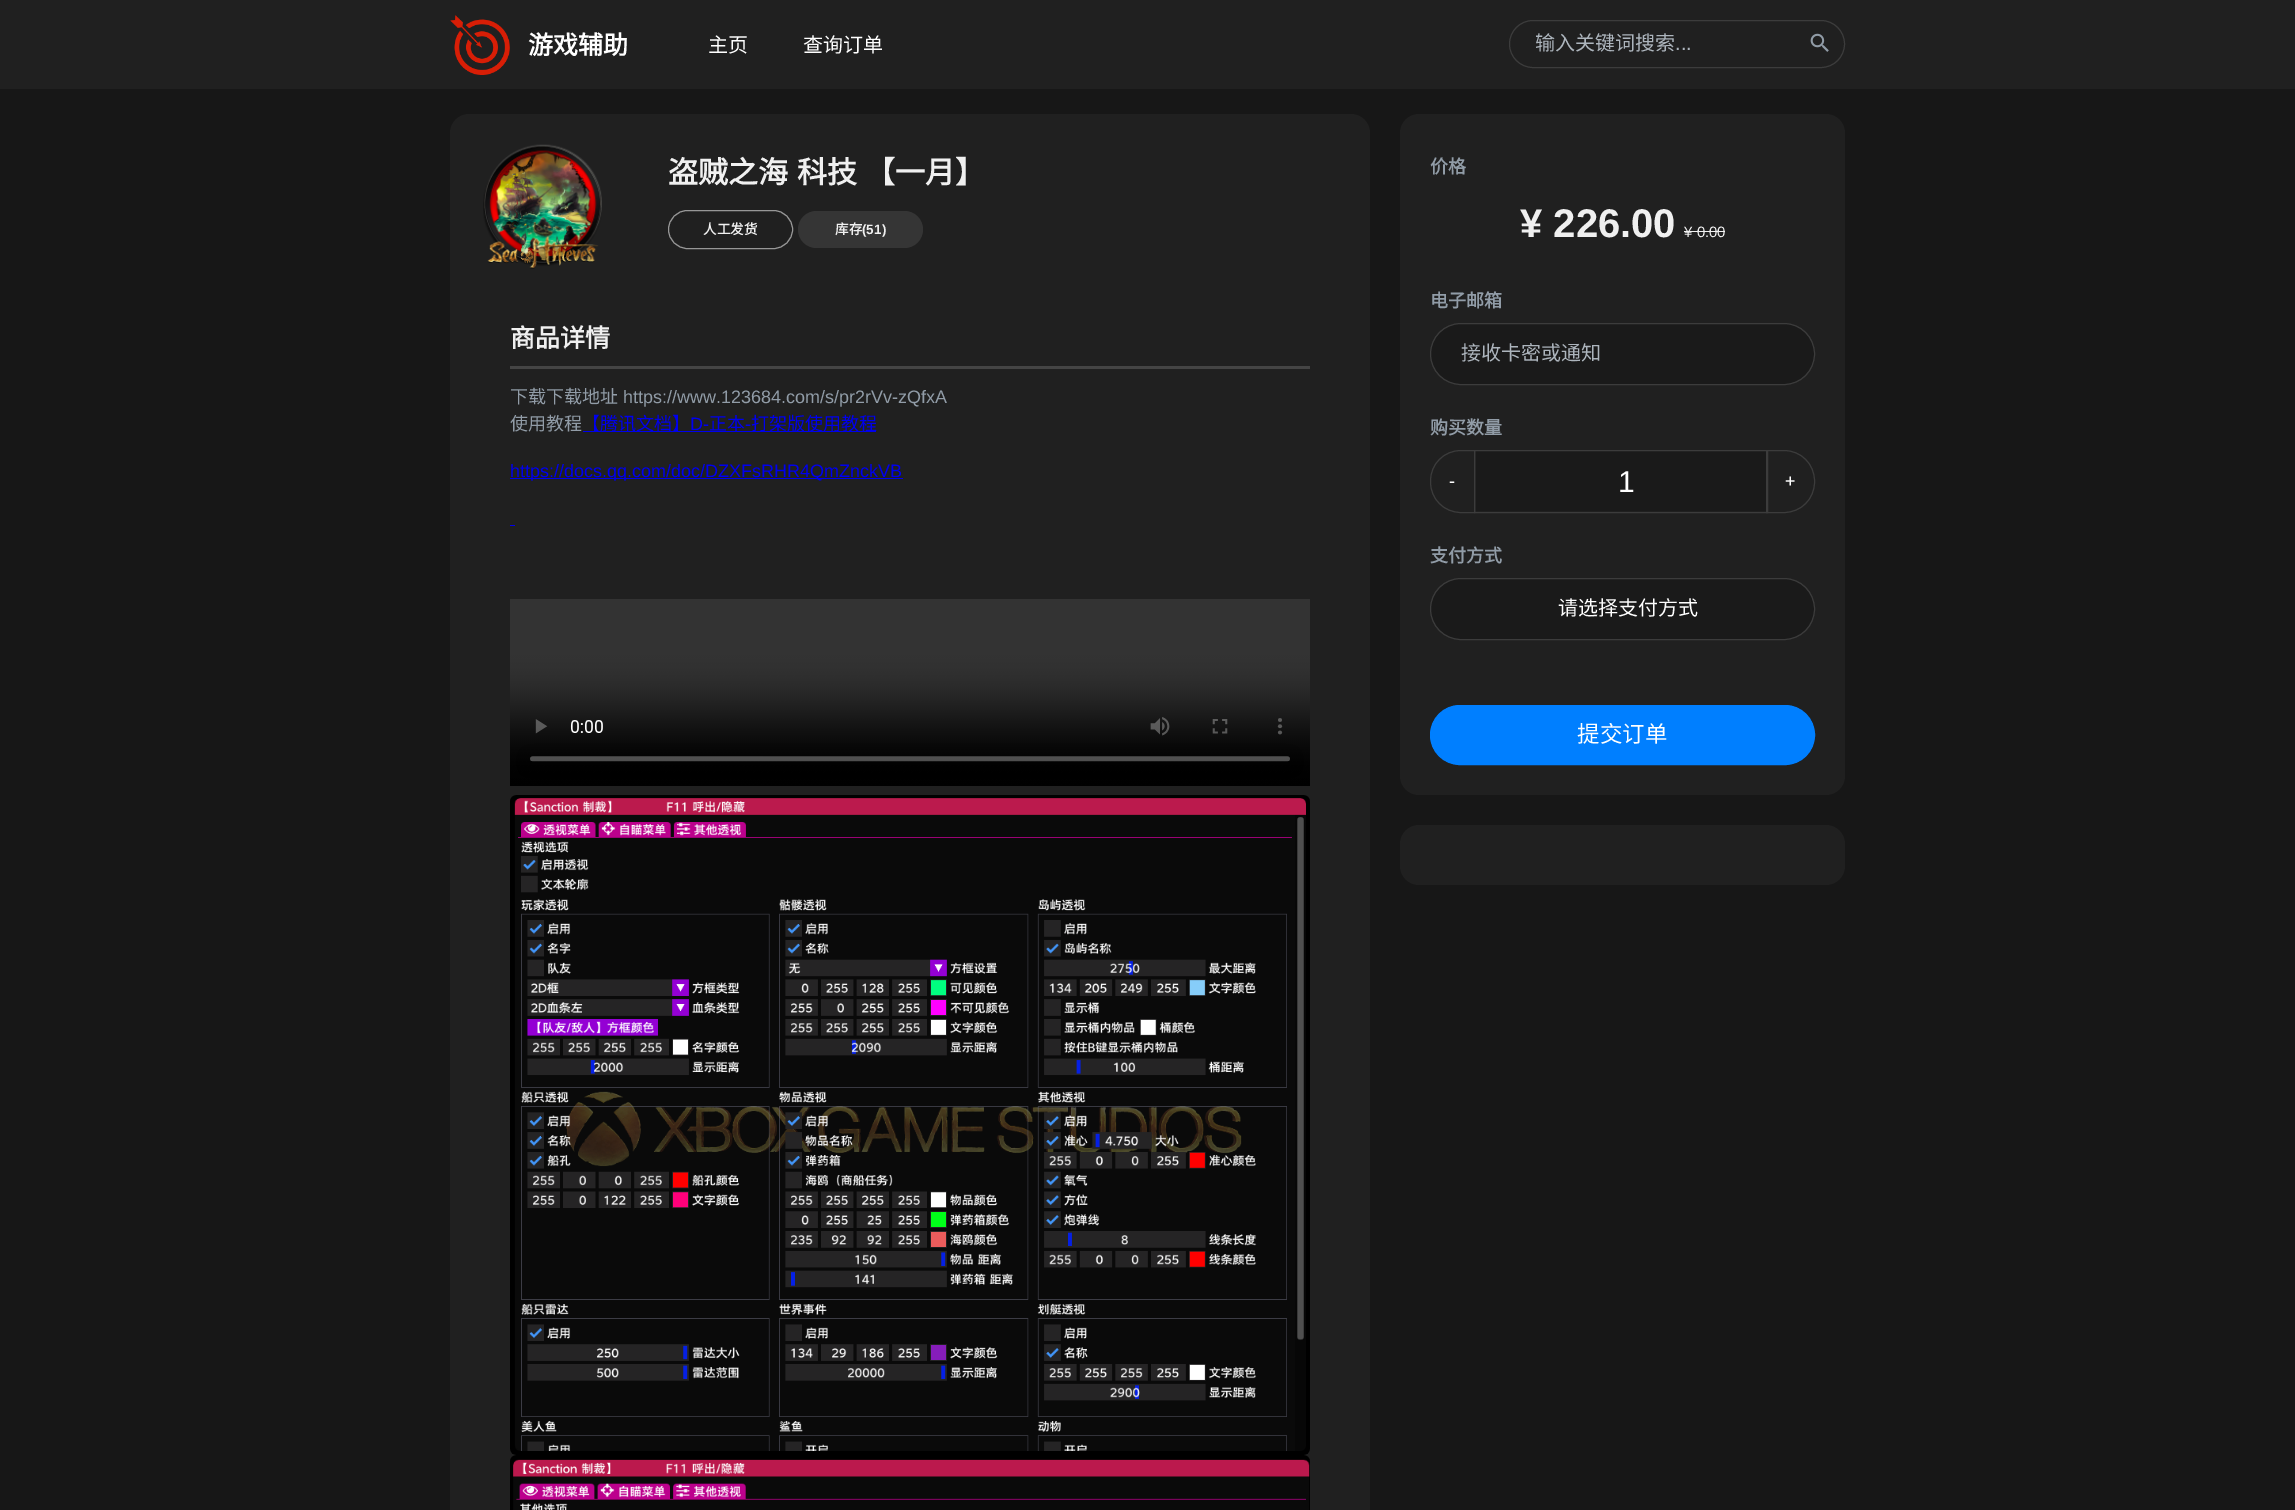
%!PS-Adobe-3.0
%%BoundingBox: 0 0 2295 1510
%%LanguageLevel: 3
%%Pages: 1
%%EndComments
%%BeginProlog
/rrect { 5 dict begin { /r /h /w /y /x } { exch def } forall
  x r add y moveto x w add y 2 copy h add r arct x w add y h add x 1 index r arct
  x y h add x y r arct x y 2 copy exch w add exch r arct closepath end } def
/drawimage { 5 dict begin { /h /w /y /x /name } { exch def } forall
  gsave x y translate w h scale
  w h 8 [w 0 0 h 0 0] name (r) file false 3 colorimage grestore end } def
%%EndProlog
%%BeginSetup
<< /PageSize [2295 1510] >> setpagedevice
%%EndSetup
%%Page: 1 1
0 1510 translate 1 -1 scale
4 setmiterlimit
0.09 setgray
0 0 2295 1510 rectfill
0.125 setgray
0 0 2295 89 rectfill
(images/1.raw) 450 15 60 60 drawimage
0.235 setgray
1509.5 20.5 335 47 23.5 rrect stroke
(images/2.raw) 1810 33 19 19 drawimage
0.125 setgray
450 114 920 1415 19 rrect fill
(images/3.raw) 483 144 119 125 drawimage
0.592 setgray
668.5 210.5 124 38 19 rrect stroke
0.208 setgray
798 211 125 37 18.5 rrect fill
0.267 setgray
510 366 800 3 rectfill
0 0 0.933 setrgbcolor
583 431 293 1 rectfill
510 478 393 1 rectfill
510 525 5 1 rectfill
(images/4.raw) 510 599 800 187 drawimage
(images/5.raw) 510 795 800 660 drawimage
(images/6.raw) 510 1455 800 55 drawimage
0.125 setgray
1400 114 445 681 19 rrect fill
0.941 setgray
1684 231 41 1 rectfill
0.102 setgray
1430.5 323.5 384 61 30.5 rrect gsave fill grestore
0.235 setgray
stroke
0.102 setgray
1475 451 291 60 rectfill
0.235 setgray
1474.5 450.5 293 62 rectstroke
newpath 1461 450.5 moveto 1474.5 450.5 lineto 1474.5 512.5 lineto 1461 512.5 lineto 1444 512.5 1430.5 499 1430.5 482 curveto 1430.5 481 lineto 1430.5 464 1444 450.5 1461 450.5 curveto closepath stroke
newpath 1766.5 450.5 moveto 1784 450.5 lineto 1801 450.5 1814.5 464 1814.5 481 curveto 1814.5 482 lineto 1814.5 499 1801 512.5 1784 512.5 curveto 1766.5 512.5 lineto closepath stroke
0.102 setgray
1430.5 578.5 384 61 30.5 rrect gsave fill grestore
0.235 setgray
stroke
0 0.498 1 setrgbcolor
1430.5 705.5 384 59 29.5 rrect gsave fill grestore
stroke
0.125 setgray
1400 825 445 60 19 rrect fill
/NotoSansCJKSC-Bold [25 0 0 -25 0 0] selectfont
1 setgray
528 54 moveto (游戏辅助) show
/NotoSansCJKSC-Regular [20 0 0 -20 0 0] selectfont
708 52 moveto (主页) show
803 52 moveto (查询订单) show
0.678 0.71 0.741 setrgbcolor
1535 50 moveto (输入关键词搜索) show
/LiberationSans-Regular [20 0 0 -20 0 0] selectfont
1675 50 moveto (...) show
/NotoSansCJKSC-Bold [30 0 0 -30 0 0] selectfont
0.941 setgray
668 183 moveto 2 0 32 (盗贼之海 科技 【一月】) widthshow
/NotoSansCJKSC-Bold [13.5 0 0 -13.5 0 0] selectfont
703 234 moveto (人工发货) show
835 234 moveto (库存) show
/LiberationSans-Bold [13.5 0 0 -13.5 0 0] selectfont
862 234 moveto (\(51\)) show
/NotoSansCJKSC-Bold [25 0 0 -25 0 0] selectfont
510 347 moveto (商品详情) show
/NotoSansCJKSC-Regular [18 0 0 -18 0 0] selectfont
0.569 0.612 0.655 setrgbcolor
510 403 moveto (下载下载地址) show
/LiberationSans-Regular [18 0 0 -18 0 0] selectfont
623 403 moveto (https://www.123684.com/s/pr2rVv-zQfxA) show
/NotoSansCJKSC-Regular [18 0 0 -18 0 0] selectfont
510 430 moveto (使用教程) show
0 0 0.933 setrgbcolor
582 430 moveto (【腾讯文档】) show
/LiberationSans-Regular [18 0 0 -18 0 0] selectfont
690 430 moveto (D-) show
/NotoSansCJKSC-Regular [18 0 0 -18 0 0] selectfont
709 430 moveto (正本) show
/LiberationSans-Regular [18 0 0 -18 0 0] selectfont
745 430 moveto (-) show
/NotoSansCJKSC-Regular [18 0 0 -18 0 0] selectfont
751 430 moveto (打架版使用教程) show
/LiberationSans-Regular [18 0 0 -18 0 0] selectfont
510 477 moveto (https://docs.qq.com/doc/DZXFsRHR4QmZnckVB) show
/NotoSansCJKSC-Bold [18 0 0 -18 0 0] selectfont
0.569 0.612 0.655 setrgbcolor
1430 173 moveto (价格) show
/LiberationSans-Bold [40 0 0 -40 0 0] selectfont
0.941 setgray
1520 237 moveto (¥ 226.00) show
/LiberationSans-Regular [15 0 0 -15 0 0] selectfont
1684 237 moveto (¥ 0.00) show
/NotoSansCJKSC-Bold [18 0 0 -18 0 0] selectfont
0.569 0.612 0.655 setrgbcolor
1430 307 moveto (电子邮箱) show
/NotoSansCJKSC-Regular [20 0 0 -20 0 0] selectfont
0.678 0.71 0.741 setrgbcolor
1461 360 moveto (接收卡密或通知) show
/NotoSansCJKSC-Bold [18 0 0 -18 0 0] selectfont
0.569 0.612 0.655 setrgbcolor
1430 434 moveto (购买数量) show
/LiberationSans-Regular [18 0 0 -18 0 0] selectfont
1 setgray
1449 487 moveto (-) show
/LiberationSans-Regular [30 0 0 -30 0 0] selectfont
1618 492 moveto (1) show
/LiberationSans-Regular [18 0 0 -18 0 0] selectfont
1785 487 moveto (+) show
/NotoSansCJKSC-Bold [18 0 0 -18 0 0] selectfont
0.569 0.612 0.655 setrgbcolor
1430 562 moveto (支付方式) show
/NotoSansCJKSC-Regular [20 0 0 -20 0 0] selectfont
1 setgray
1558 615 moveto (请选择支付方式) show
/NotoSansCJKSC-Regular [22.5 0 0 -22.5 0 0] selectfont
1577 742 moveto (提交订单) show
showpage
%%EOF
